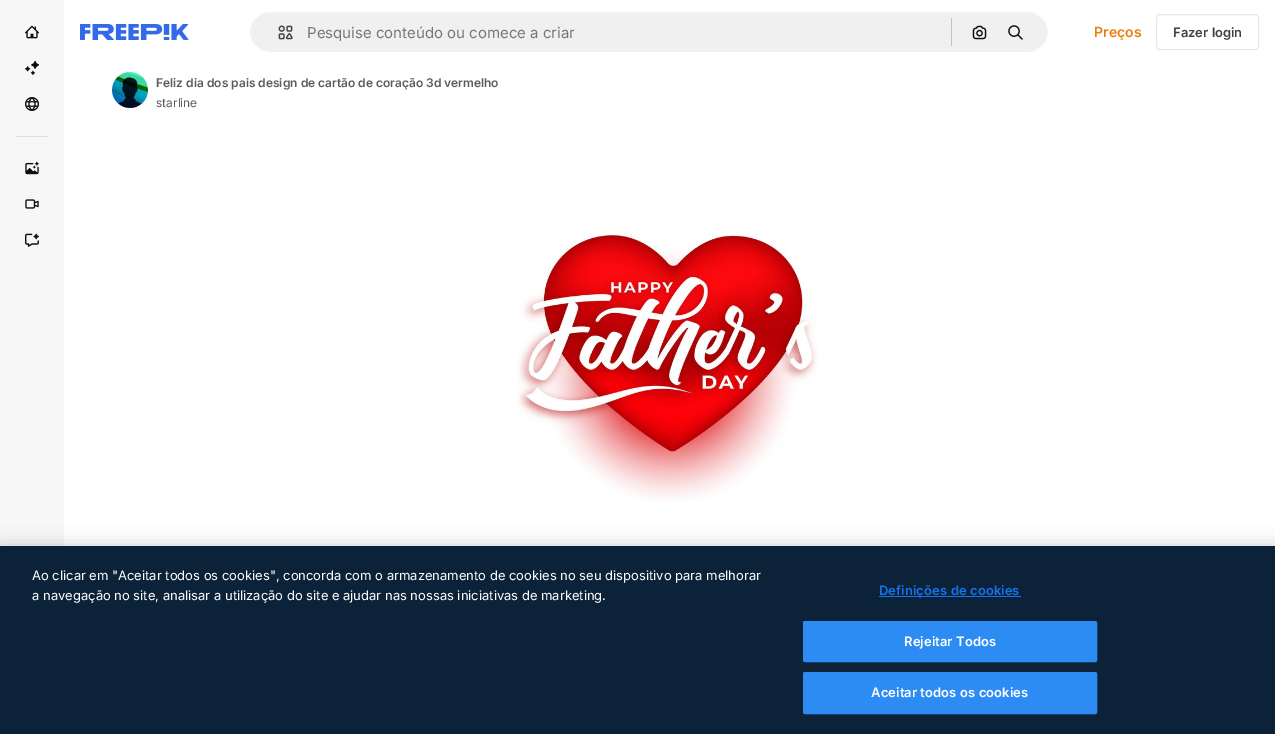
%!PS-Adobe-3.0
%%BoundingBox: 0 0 1275 734
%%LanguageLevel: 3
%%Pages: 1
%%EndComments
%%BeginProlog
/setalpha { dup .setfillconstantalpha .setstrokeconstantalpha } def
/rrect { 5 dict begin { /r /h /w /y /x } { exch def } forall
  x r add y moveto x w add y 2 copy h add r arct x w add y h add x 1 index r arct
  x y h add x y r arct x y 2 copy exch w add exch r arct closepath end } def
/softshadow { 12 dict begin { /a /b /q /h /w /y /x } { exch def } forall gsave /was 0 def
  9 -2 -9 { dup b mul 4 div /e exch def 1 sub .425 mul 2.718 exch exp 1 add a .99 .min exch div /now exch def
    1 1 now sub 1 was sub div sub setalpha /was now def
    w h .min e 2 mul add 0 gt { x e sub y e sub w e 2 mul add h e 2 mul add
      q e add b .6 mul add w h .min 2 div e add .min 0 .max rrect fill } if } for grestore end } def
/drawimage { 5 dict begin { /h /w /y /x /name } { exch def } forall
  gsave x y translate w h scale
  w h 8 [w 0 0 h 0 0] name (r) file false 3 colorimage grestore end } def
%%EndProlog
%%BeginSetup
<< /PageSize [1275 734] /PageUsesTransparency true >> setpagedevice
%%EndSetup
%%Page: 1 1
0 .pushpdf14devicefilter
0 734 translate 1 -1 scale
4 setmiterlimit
1 setgray
0 0 1275 734 rectfill
0.969 setgray
0 0 64 546 rectfill
(images/1.raw) 25 25 14 14 drawimage
(images/2.raw) 25 61 14 14 drawimage
(images/3.raw) 25 97 14 14 drawimage
0.878 setgray
16 136 32 1 rectfill
(images/4.raw) 25 161 14 14 drawimage
(images/5.raw) 25 199 14 10 drawimage
(images/6.raw) 25 233 14 14 drawimage
(images/7.raw) 80 24 109 16 drawimage
0.941 setgray
249.5 11.5 799 41 20.5 rrect gsave fill grestore
1 setgray
stroke
(images/8.raw) 278 25 15 15 drawimage
0.765 setgray
951 18 1 28 rectfill
(images/9.raw) 972 25 15 15 drawimage
(images/10.raw) 1008 25 15 15 drawimage
0.906 setgray
1156.5 14.5 102 35 3.5 rrect stroke
(images/11.raw) 112 72 36 36 drawimage
(images/12.raw) 517 231 301 270 drawimage
0 setgray
0 546 1275 188 0 9 0.2 softshadow
0.043 0.133 0.224 setrgbcolor
0 546 1275 188 rectfill
0.071 0.451 0.922 setrgbcolor
879 596 142 1 rectfill
0.173 0.549 0.957 setrgbcolor
803.5 621.5 293 40 1.5 rrect gsave fill grestore
stroke
803.5 672.5 293 41 1.5 rrect gsave fill grestore
stroke
/Inter-Regular [15 0 0 -15 0 0] selectfont
0.467 setgray
307 38 moveto (Pesquise conteúdo ou comece a criar) show
/Inter-SemiBold [14 0 0 -14 0 0] selectfont
0.918 0.494 0.067 setrgbcolor
1094 37 moveto (Preços) show
/Inter-SemiBold [13 0 0 -13 0 0] selectfont
0.259 setgray
1173 37 moveto (Fazer login) show
/Inter-SemiBold [12 0 0 -12 0 0] selectfont
0.361 setgray
156 87 moveto (Feliz dia dos pais design de cartão de coração 3d vermelho) show
/Inter-Regular [12 0 0 -12 0 0] selectfont
156 107 moveto (starline) show
/Inter-Regular [13 0 0 -13 0 0] selectfont
1 setgray
32 580 moveto (Ao clicar em "Aceitar todos os cookies", concorda com o armazenamento de cookies no seu dispositivo para melhorar) show
32 600 moveto (a navegação no site, analisar a utilização do site e ajudar nas nossas iniciativas de marketing.) show
/Inter-SemiBold [13 0 0 -13 0 0] selectfont
0.071 0.451 0.922 setrgbcolor
879 595 moveto 0.1 0 (Definições de cookies) ashow
1 setgray
904 646 moveto 0.1 0 (Rejeitar Todos) ashow
871 697 moveto 0.1 0 (Aceitar todos os cookies) ashow
.poppdf14devicefilter showpage
%%EOF
